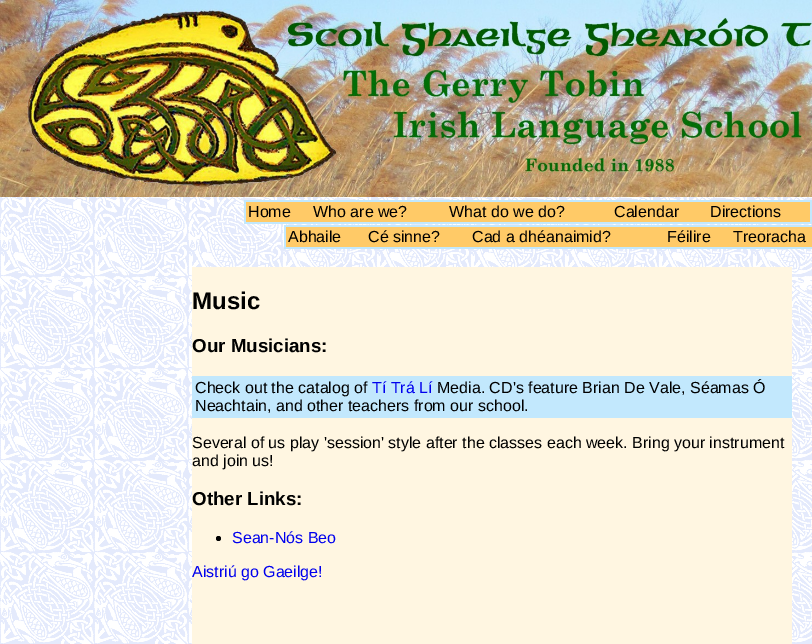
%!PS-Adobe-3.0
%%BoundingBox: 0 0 812 644
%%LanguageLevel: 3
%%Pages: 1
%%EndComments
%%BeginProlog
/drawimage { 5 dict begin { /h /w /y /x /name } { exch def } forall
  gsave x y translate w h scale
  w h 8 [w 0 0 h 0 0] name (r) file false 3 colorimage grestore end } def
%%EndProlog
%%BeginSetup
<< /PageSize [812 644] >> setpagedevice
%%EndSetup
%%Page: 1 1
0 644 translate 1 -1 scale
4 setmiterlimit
1 setgray
0 0 812 644 rectfill
(images/1.raw) 0 197 812 447 drawimage
(images/2.raw) 0 0 812 197 drawimage
0.761 0.91 0.992 setrgbcolor
244 200 568 24 rectfill
1 0.792 0.404 setrgbcolor
246 202 564 20 rectfill
0.761 0.91 0.992 setrgbcolor
284 225 528 24 rectfill
1 0.792 0.404 setrgbcolor
286 227 526 20 rectfill
1 0.965 0.882 setrgbcolor
192 267 600 377 rectfill
0.761 0.91 0.992 setrgbcolor
192 376 600 42 rectfill
0 setgray
newpath 218.5 538.5 2.5 0 360 arc closepath fill
/LiberationSans-Regular [16 0 0 -16 0 0] selectfont
248 217 moveto (Home) show
313 217 moveto (Who are we?) show
449 217 moveto (What do we do?) show
614 217 moveto (Calendar) show
710 217 moveto (Directions) show
288 242 moveto (Abhaile) show
368 242 moveto (Cé sinne?) show
472 242 moveto (Cad a dhéanaimid?) show
667 242 moveto (Féilire) show
733 242 moveto (Treoracha) show
/LiberationSans-Bold [24 0 0 -24 0 0] selectfont
192 309 moveto (Music) show
/LiberationSans-Bold [18.75 0 0 -18.75 0 0] selectfont
192 352 moveto (Our Musicians:) show
/LiberationSans-Regular [16 0 0 -16 0 0] selectfont
195 393 moveto (Check out the catalog of) show
0 0 0.933 setrgbcolor
372 393 moveto (Tí Trá Lí) show
0 setgray
437 393 moveto (Media. CD's feature Brian De Vale, Séamas Ó) show
195 411 moveto (Neachtain, and other teachers from our school.) show
192 448 moveto (Several of us play 'session' style after the classes each week. Bring your instrument) show
192 466 moveto (and join us!) show
/LiberationSans-Bold [18.75 0 0 -18.75 0 0] selectfont
192 505 moveto (Other Links:) show
/LiberationSans-Regular [16 0 0 -16 0 0] selectfont
0 0 0.933 setrgbcolor
232 543 moveto (Sean-Nós Beo) show
192 577 moveto (Aistriú go Gaeilge!) show
showpage
%%EOF
